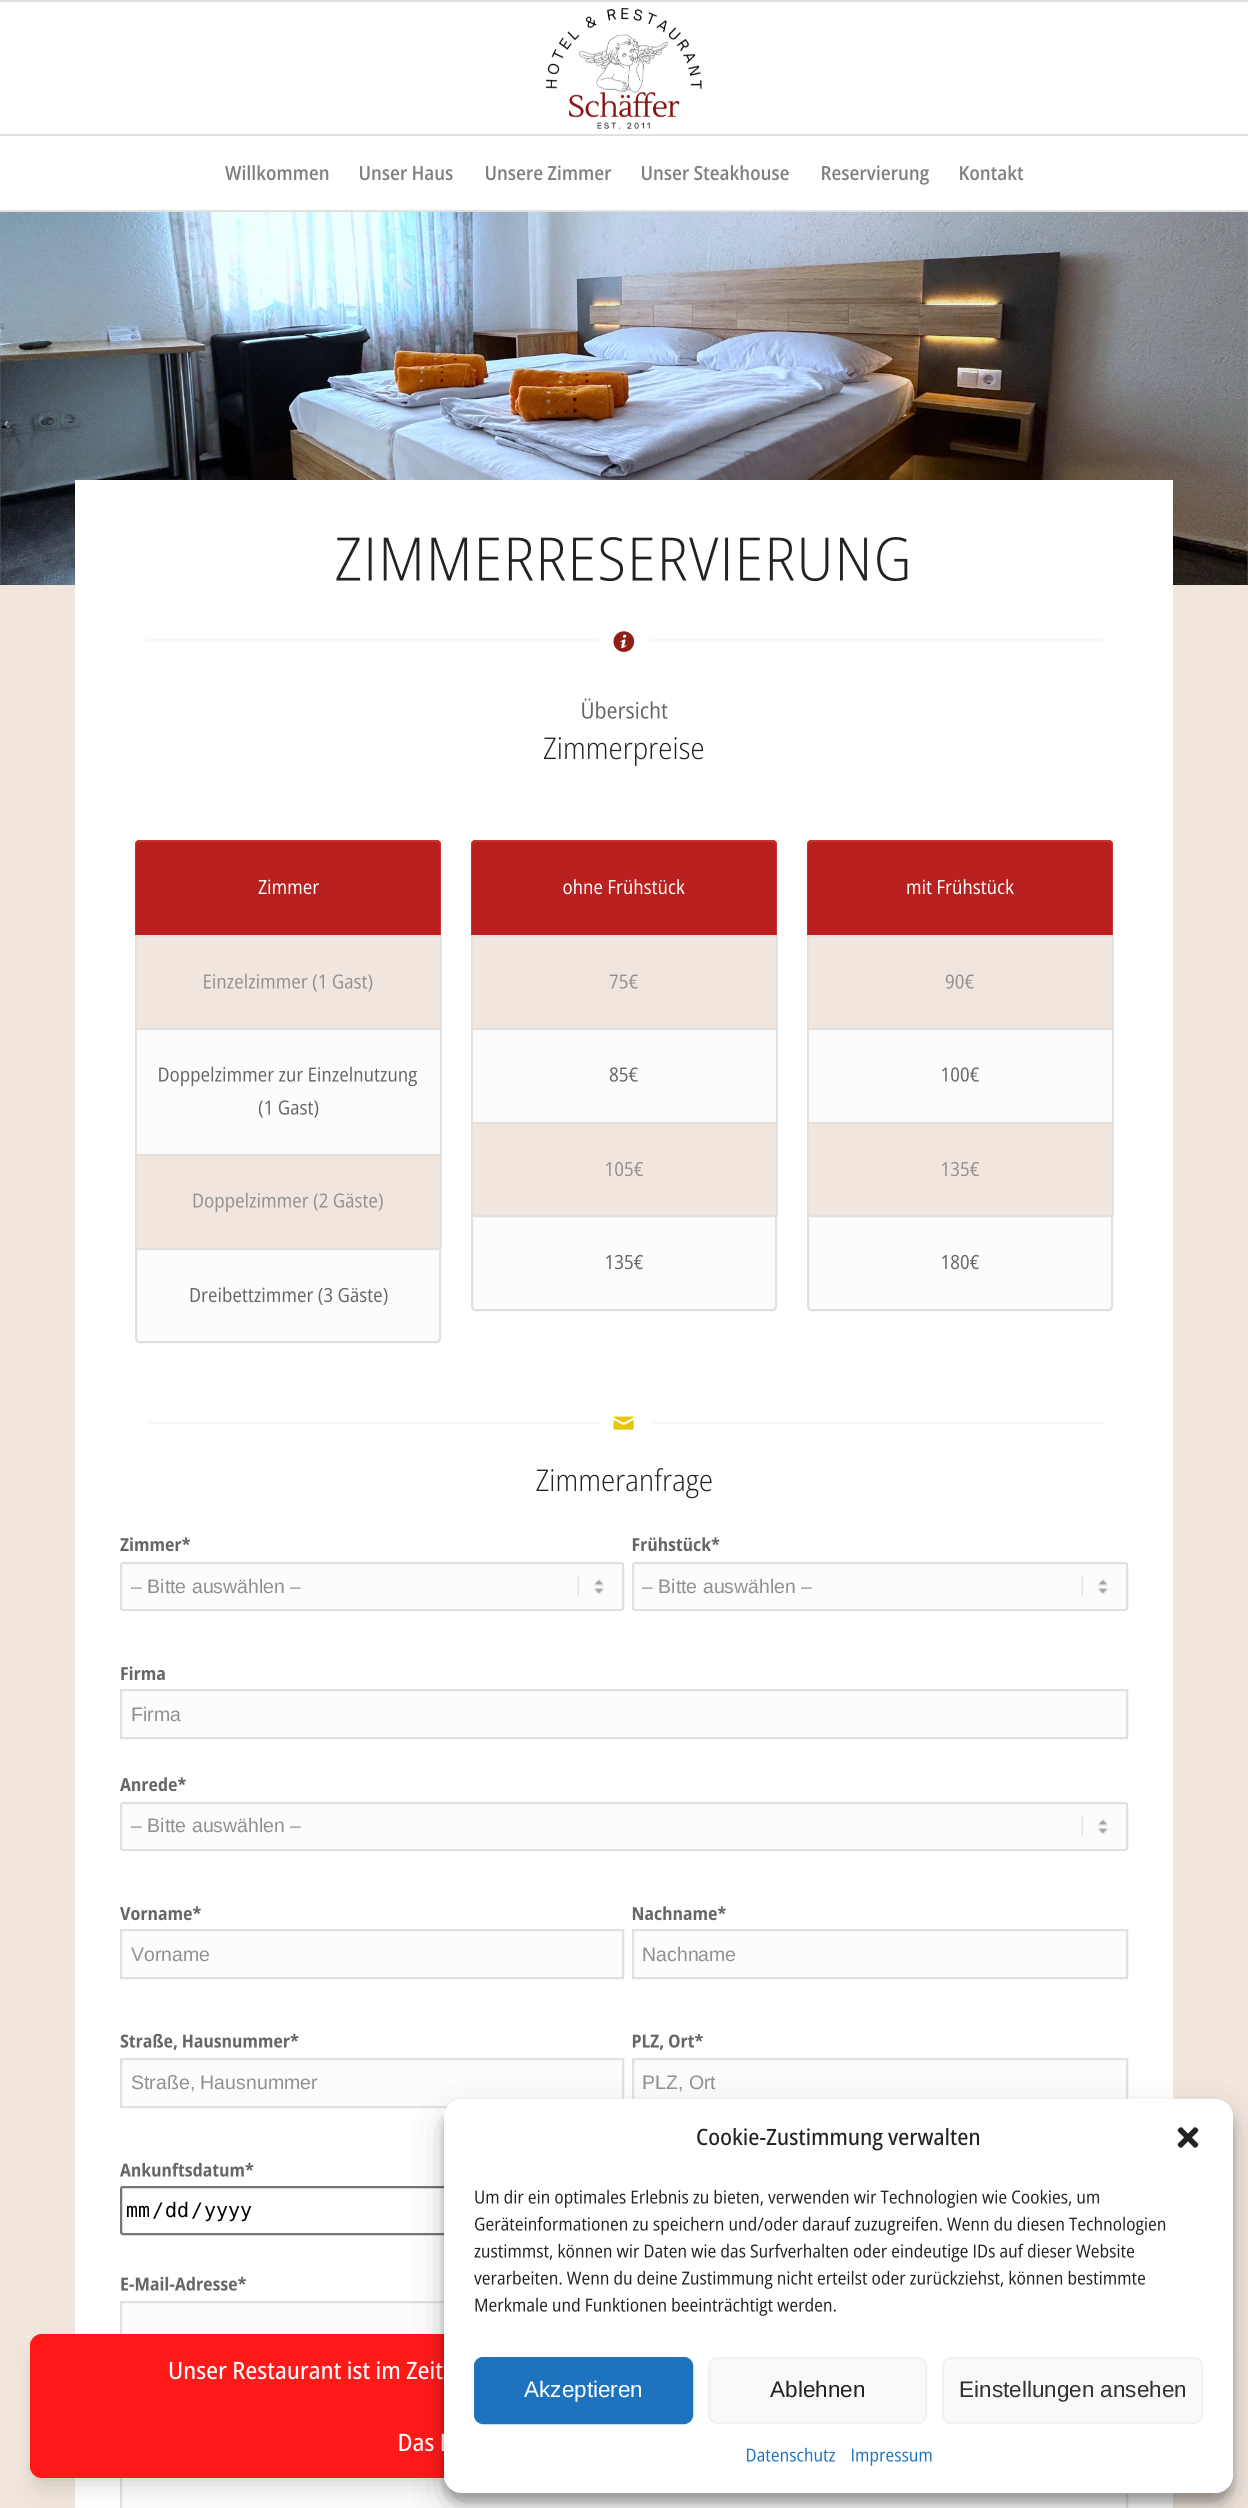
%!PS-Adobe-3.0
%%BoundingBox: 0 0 1248 2508
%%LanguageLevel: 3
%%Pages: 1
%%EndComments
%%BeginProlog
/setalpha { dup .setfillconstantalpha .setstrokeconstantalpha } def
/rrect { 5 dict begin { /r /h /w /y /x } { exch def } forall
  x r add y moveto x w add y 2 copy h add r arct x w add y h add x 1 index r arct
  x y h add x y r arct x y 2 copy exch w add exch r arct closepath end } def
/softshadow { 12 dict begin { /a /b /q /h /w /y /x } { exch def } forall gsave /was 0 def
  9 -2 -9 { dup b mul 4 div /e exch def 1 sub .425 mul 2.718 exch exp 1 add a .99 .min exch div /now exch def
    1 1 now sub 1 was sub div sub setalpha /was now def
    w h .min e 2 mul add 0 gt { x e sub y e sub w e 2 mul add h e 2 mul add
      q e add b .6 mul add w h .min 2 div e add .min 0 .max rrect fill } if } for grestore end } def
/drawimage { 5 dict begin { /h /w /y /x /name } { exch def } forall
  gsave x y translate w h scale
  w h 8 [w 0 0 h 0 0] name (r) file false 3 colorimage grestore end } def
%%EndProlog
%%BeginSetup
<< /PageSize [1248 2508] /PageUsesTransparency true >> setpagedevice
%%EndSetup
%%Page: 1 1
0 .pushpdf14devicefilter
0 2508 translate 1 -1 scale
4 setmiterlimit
1 setgray
0 0 1248 2508 rectfill
0.882 setgray
0 0 1248 2 rectfill
0 210 1248 2 rectfill
(images/1.raw) 545 7 157 122 drawimage
0 134 1248 2 rectfill
(images/2.raw) 225 165 104 16 drawimage
(images/3.raw) 360 166 93 15 drawimage
(images/4.raw) 486 165 126 16 drawimage
(images/5.raw) 642 165 147 16 drawimage
(images/6.raw) 822 165 107 20 drawimage
(images/7.raw) 960 165 64 16 drawimage
(images/8.raw) 0 212 1248 373 drawimage
0.941 0.902 0.867 setrgbcolor
0 585 1248 1923 rectfill
1 setgray
75 480 1098 2028 rectfill
(images/9.raw) 336 537 572 45 drawimage
0.973 setgray
146 639 453 3 rectfill
(images/10.raw) 613 631 22 21 drawimage
650 639 453 3 rectfill
(images/11.raw) 582 698 86 21 drawimage
(images/12.raw) 543 737 161 30 drawimage
0.725 0.129 0.129 setrgbcolor
newpath 140 840 moveto 436 840 lineto 439 840 441 842 441 845 curveto 441 935 lineto 135 935 lineto 135 845 lineto 135 842 137 840 140 840 curveto closepath fill
0.792 0.196 0.196 setrgbcolor
newpath 140 840 moveto 436 840 lineto 439 840 441 842 441 844 curveto 441 934 lineto 135 934 lineto 135 844 lineto 135 842 137 840 140 840 curveto closepath 140 842 moveto 436 842 lineto 438 842 440 843 440 844 curveto 440 934 lineto 136 934 lineto 136 844 lineto 136 843 138 842 140 842 curveto closepath eofill
(images/13.raw) 258 879 61 16 drawimage
0.941 0.902 0.867 setrgbcolor
137 937 303 91 rectfill
0.882 setgray
135 935 306 2 rectfill
440 935 2 93 rectfill
135 935 2 93 rectfill
(images/14.raw) 204 973 169 19 drawimage
0.988 setgray
137 1030 303 124 rectfill
0.882 setgray
135 1028 306 2 rectfill
440 1028 2 126 rectfill
135 1028 2 126 rectfill
(images/15.raw) 159 1066 258 21 drawimage
(images/16.raw) 258 1100 61 18 drawimage
0.941 0.902 0.867 setrgbcolor
137 1156 303 92 rectfill
0.882 setgray
135 1154 306 2 rectfill
440 1154 2 94 rectfill
135 1154 2 94 rectfill
(images/17.raw) 193 1192 190 21 drawimage
0.988 setgray
newpath 136 1249 moveto 440 1249 lineto 440 1338 lineto 440 1340 438 1342 436 1342 curveto 140 1342 lineto 138 1342 136 1340 136 1338 curveto closepath gsave fill grestore
0.882 setgray
2 setlinewidth
stroke
(images/18.raw) 190 1287 198 19 drawimage
0.725 0.129 0.129 setrgbcolor
newpath 476 840 moveto 772 840 lineto 775 840 777 842 777 845 curveto 777 935 lineto 471 935 lineto 471 845 lineto 471 842 473 840 476 840 curveto closepath fill
0.792 0.196 0.196 setrgbcolor
newpath 476 840 moveto 772 840 lineto 775 840 777 842 777 844 curveto 777 934 lineto 471 934 lineto 471 844 lineto 471 842 473 840 476 840 curveto closepath 476 842 moveto 772 842 lineto 774 842 776 843 776 844 curveto 776 934 lineto 472 934 lineto 472 844 lineto 472 843 474 842 476 842 curveto closepath eofill
(images/19.raw) 563 879 122 16 drawimage
0.941 0.902 0.867 setrgbcolor
473 937 303 91 rectfill
0.882 setgray
471 935 306 2 rectfill
776 935 2 93 rectfill
471 935 2 93 rectfill
(images/20.raw) 609 974 29 15 drawimage
0.988 setgray
473 1030 303 92 rectfill
0.882 setgray
471 1028 306 2 rectfill
776 1028 2 94 rectfill
471 1028 2 94 rectfill
(images/21.raw) 609 1067 29 15 drawimage
0.941 0.902 0.867 setrgbcolor
473 1124 303 91 rectfill
0.882 setgray
471 1122 306 2 rectfill
776 1122 2 93 rectfill
471 1122 2 93 rectfill
(images/22.raw) 606 1161 37 16 drawimage
0.988 setgray
newpath 472 1216 moveto 776 1216 lineto 776 1306 lineto 776 1308 774 1310 772 1310 curveto 476 1310 lineto 474 1310 472 1308 472 1306 curveto closepath gsave fill grestore
0.882 setgray
stroke
(images/23.raw) 606 1254 37 16 drawimage
0.725 0.129 0.129 setrgbcolor
newpath 812 840 moveto 1108 840 lineto 1111 840 1113 842 1113 845 curveto 1113 935 lineto 807 935 lineto 807 845 lineto 807 842 809 840 812 840 curveto closepath fill
0.792 0.196 0.196 setrgbcolor
newpath 812 840 moveto 1108 840 lineto 1111 840 1113 842 1113 844 curveto 1113 934 lineto 807 934 lineto 807 844 lineto 807 842 809 840 812 840 curveto closepath 812 842 moveto 1108 842 lineto 1110 842 1112 843 1112 844 curveto 1112 934 lineto 808 934 lineto 808 844 lineto 808 843 810 842 812 842 curveto closepath eofill
(images/24.raw) 907 879 107 16 drawimage
0.941 0.902 0.867 setrgbcolor
809 937 303 91 rectfill
0.882 setgray
807 935 306 2 rectfill
1112 935 2 93 rectfill
807 935 2 93 rectfill
(images/25.raw) 945 974 29 15 drawimage
0.988 setgray
809 1030 303 92 rectfill
0.882 setgray
807 1028 306 2 rectfill
1112 1028 2 94 rectfill
807 1028 2 94 rectfill
(images/26.raw) 942 1067 37 15 drawimage
0.941 0.902 0.867 setrgbcolor
809 1124 303 91 rectfill
0.882 setgray
807 1122 306 2 rectfill
1112 1122 2 93 rectfill
807 1122 2 93 rectfill
(images/27.raw) 942 1161 37 16 drawimage
0.988 setgray
newpath 808 1216 moveto 1112 1216 lineto 1112 1306 lineto 1112 1308 1110 1310 1108 1310 curveto 812 1310 lineto 810 1310 808 1308 808 1306 curveto closepath gsave fill grestore
0.882 setgray
stroke
(images/28.raw) 942 1254 37 16 drawimage
0.973 setgray
146 1421 453 3 rectfill
(images/29.raw) 613 1416 21 14 drawimage
650 1421 453 3 rectfill
(images/30.raw) 536 1468 176 31 drawimage
(images/31.raw) 120 1537 70 15 drawimage
0.988 setgray
120 1562 504 49 3 rrect fill
(images/32.raw) 577 1576 27 20 drawimage
0.882 setgray
121 1563 502 47 2 rrect stroke
(images/33.raw) 632 1537 88 15 drawimage
0.988 setgray
632 1562 496 49 3 rrect fill
(images/34.raw) 1081 1576 27 20 drawimage
0.882 setgray
633 1563 494 47 2 rrect stroke
(images/35.raw) 121 1666 44 15 drawimage
0.988 setgray
newpath 121 1690 moveto 1127 1690 lineto 1127 1738 lineto 121 1738 lineto closepath gsave fill grestore
0.882 setgray
stroke
(images/36.raw) 120 1777 66 15 drawimage
0.988 setgray
120 1802 1008 49 3 rrect fill
(images/34.raw) 1081 1816 27 20 drawimage
0.882 setgray
121 1803 1006 47 2 rrect stroke
(images/37.raw) 120 1906 81 15 drawimage
0.988 setgray
newpath 121 1930 moveto 623 1930 lineto 623 1978 lineto 121 1978 lineto closepath gsave fill grestore
0.882 setgray
stroke
(images/38.raw) 632 1906 94 15 drawimage
0.988 setgray
newpath 633 1930 moveto 1127 1930 lineto 1127 1978 lineto 633 1978 lineto closepath gsave fill grestore
0.882 setgray
stroke
(images/39.raw) 120 2033 179 17 drawimage
0.988 setgray
newpath 121 2059 moveto 623 2059 lineto 623 2107 lineto 121 2107 lineto closepath gsave fill grestore
0.882 setgray
stroke
(images/40.raw) 632 2033 71 17 drawimage
0.988 setgray
634 2060 492 39 rectfill
0.882 setgray
633 2059 494 48 rectstroke
(images/41.raw) 120 2162 134 15 drawimage
0.463 setgray
121 2187 502 47 2 rrect stroke
(images/42.raw) 121 2276 125 15 drawimage
0.988 setgray
122 2303 322 31 rectfill
0.882 setgray
121 2302 1006 48 rectstroke
0.988 setgray
122 2478 1004 30 rectfill
0.882 setgray
121 2413 1006 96 rectstroke
0 setgray
33 2343 1182 138 9 4.5 0.05 softshadow
35 2354 1179 135 8 11 0.1 softshadow
1 0.098 0.098 setrgbcolor
30 2334 1188 144 12 rrect fill
(images/43.raw) 169 2361 274 19 drawimage
(images/44.raw) 399 2433 45 19 drawimage
0 setgray
444 2108 789 394 18 4.5 0.23 softshadow
444 2114 789 394 18 15 0.19 softshadow
1 setgray
444 2099 789 394 18 rrect fill
(images/45.raw) 697 2127 283 24 drawimage
(images/46.raw) 1177 2127 22 21 drawimage
(images/47.raw) 475 2189 625 19 drawimage
(images/48.raw) 475 2216 691 19 drawimage
(images/49.raw) 474 2243 660 19 drawimage
(images/50.raw) 474 2270 671 19 drawimage
(images/51.raw) 475 2297 361 19 drawimage
0.118 0.451 0.745 setrgbcolor
475 2358 217 65 8 rrect gsave fill grestore
stroke
0.976 setgray
709 2358 217 65 8 rrect gsave fill grestore
0.949 setgray
stroke
0.976 setgray
943 2358 259 65 8 rrect gsave fill grestore
0.949 setgray
stroke
(images/52.raw) 747 2447 88 15 drawimage
(images/53.raw) 852 2448 80 18 drawimage
/LiberationSans-Regular [19.5 0 0 -19.5 0 0] selectfont
0.569 setgray
131 1593 moveto (– Bitte auswählen –) show
642 1593 moveto (– Bitte auswählen –) show
131 1721 moveto (Firma) show
131 1832 moveto (– Bitte auswählen –) show
131 1961 moveto (Vorname) show
642 1961 moveto (Nachname) show
131 2089 moveto (Straße, Hausnummer) show
642 2089 moveto (PLZ, Ort) show
/DejaVuSansMono-Regular [20 0 0 -20 0 0] selectfont
0 setgray
126 2217 moveto (mm) show
152 2217 moveto (/) show
165 2217 moveto (dd) show
191 2217 moveto (/) show
204 2217 moveto (yyyy) show
/LiberationSans-Regular [22.5 0 0 -22.5 0 0] selectfont
1 setgray
524 2397 moveto (Akzeptieren) show
0.133 setgray
770 2397 moveto (Ablehnen) show
0.2 setgray
959 2397 moveto (Einstellungen ansehen) show
.poppdf14devicefilter showpage
%%EOF
